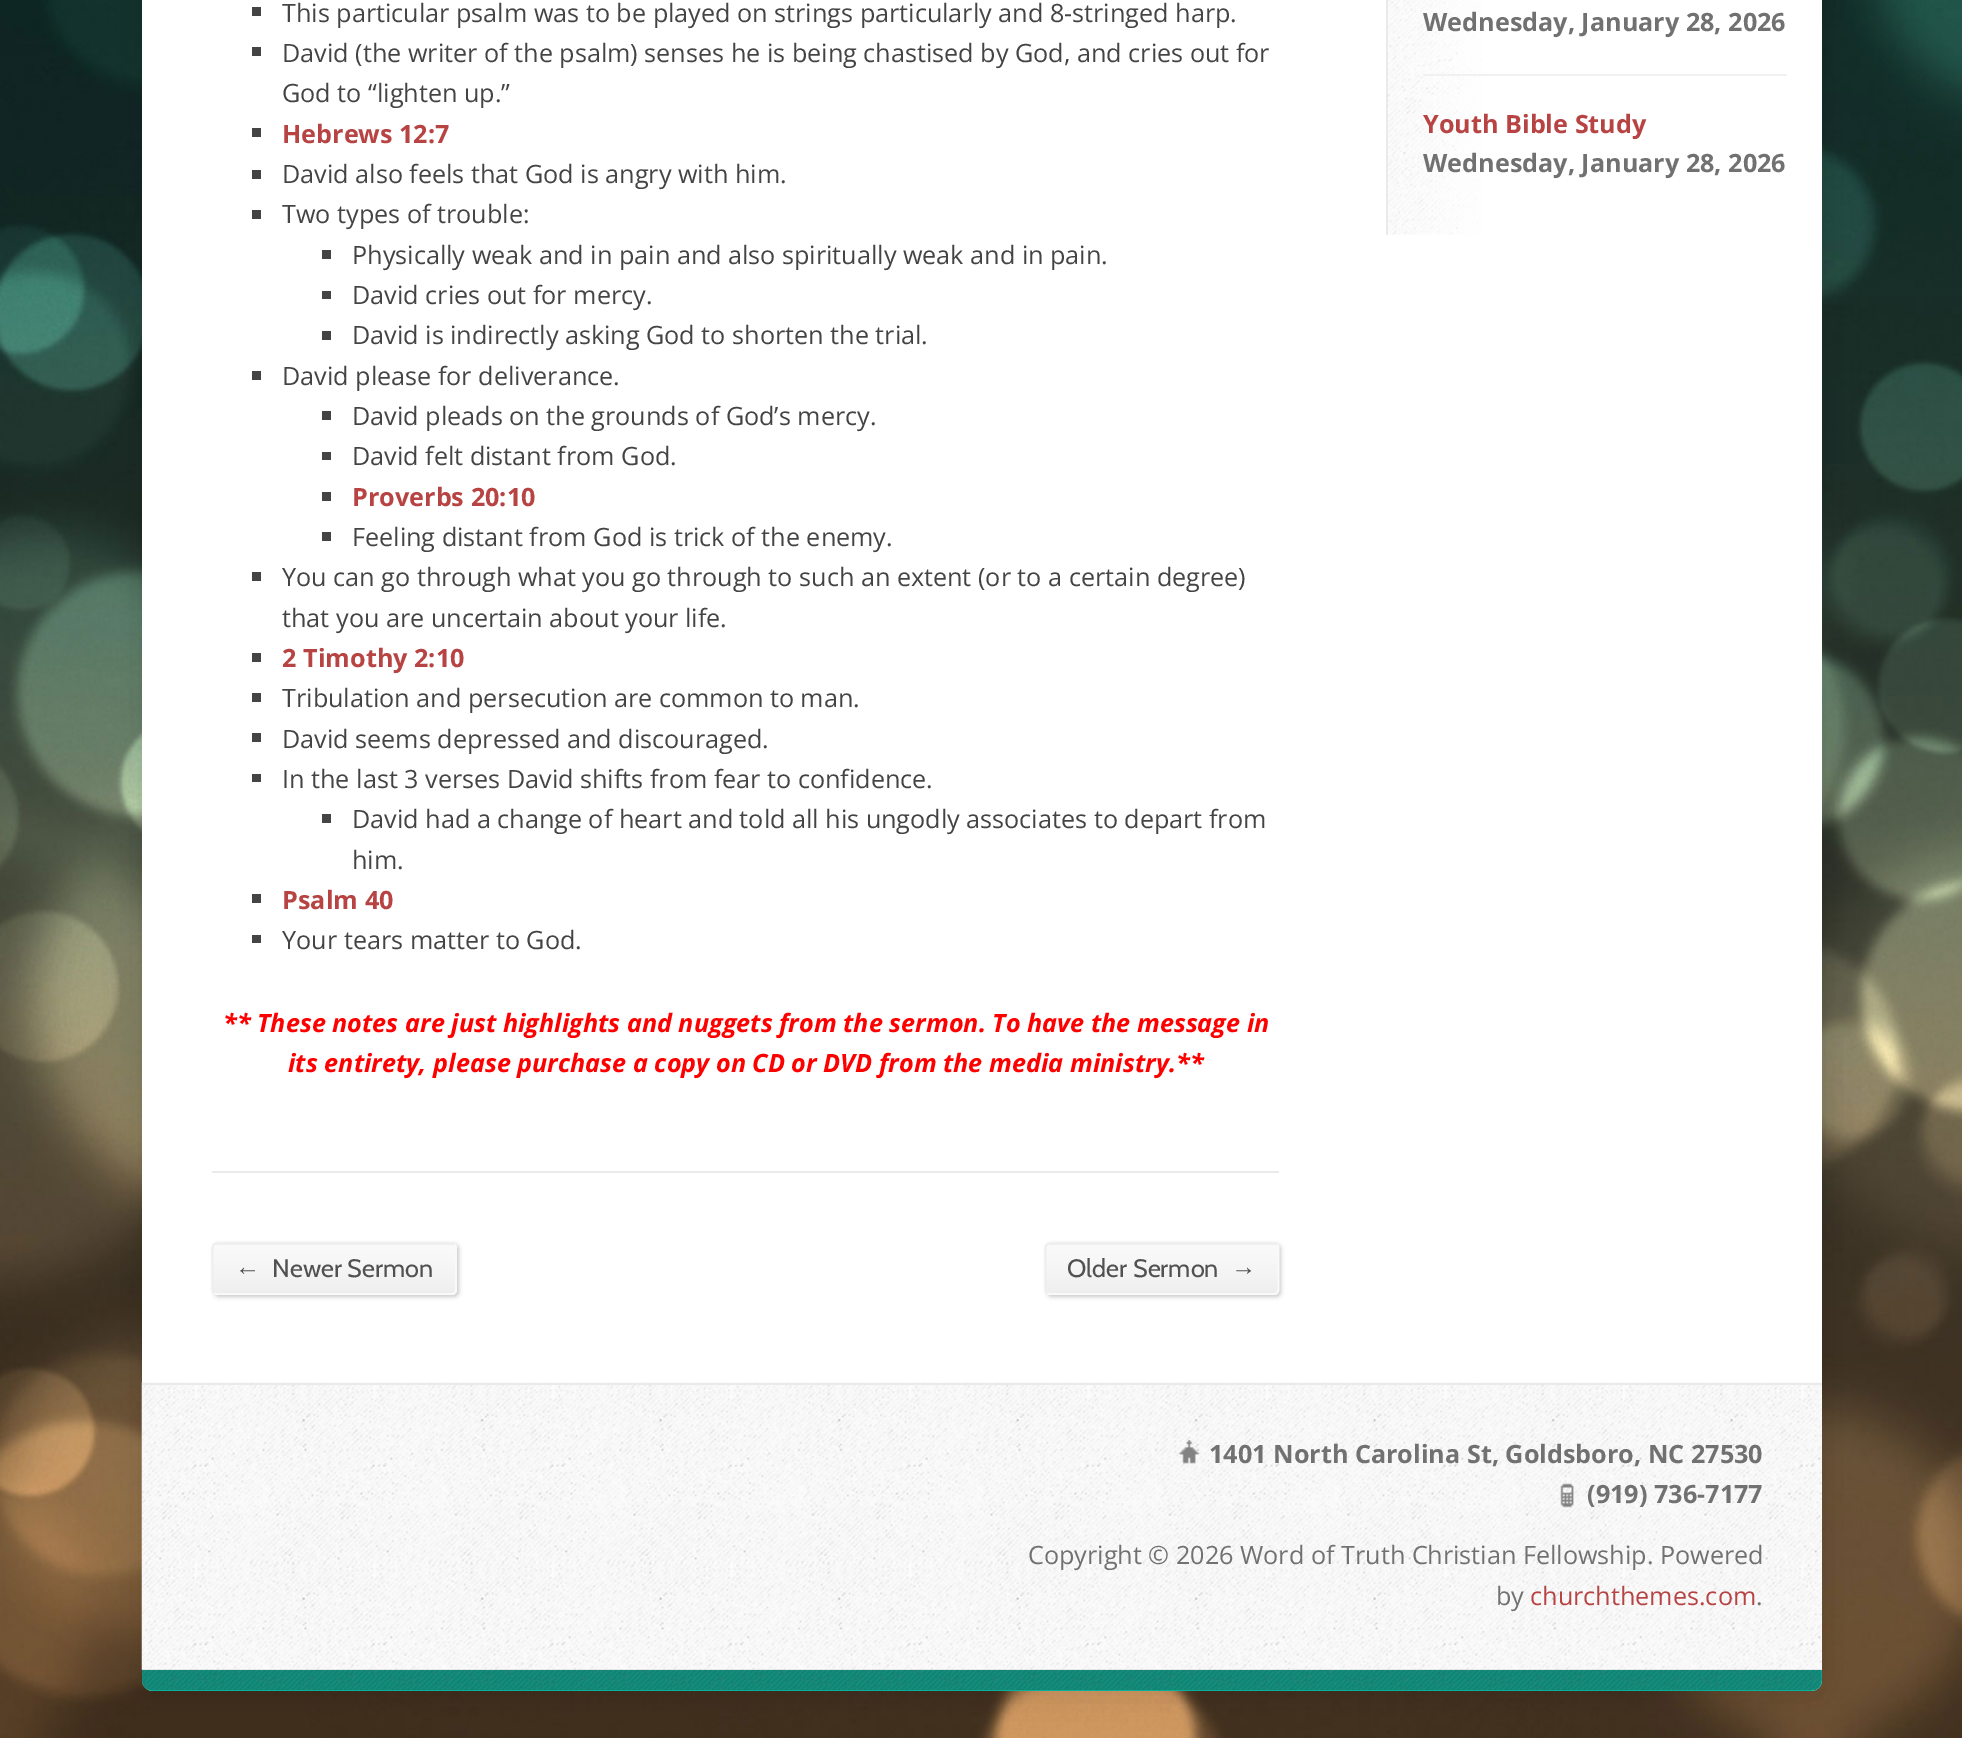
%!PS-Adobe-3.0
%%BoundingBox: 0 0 1962 1738
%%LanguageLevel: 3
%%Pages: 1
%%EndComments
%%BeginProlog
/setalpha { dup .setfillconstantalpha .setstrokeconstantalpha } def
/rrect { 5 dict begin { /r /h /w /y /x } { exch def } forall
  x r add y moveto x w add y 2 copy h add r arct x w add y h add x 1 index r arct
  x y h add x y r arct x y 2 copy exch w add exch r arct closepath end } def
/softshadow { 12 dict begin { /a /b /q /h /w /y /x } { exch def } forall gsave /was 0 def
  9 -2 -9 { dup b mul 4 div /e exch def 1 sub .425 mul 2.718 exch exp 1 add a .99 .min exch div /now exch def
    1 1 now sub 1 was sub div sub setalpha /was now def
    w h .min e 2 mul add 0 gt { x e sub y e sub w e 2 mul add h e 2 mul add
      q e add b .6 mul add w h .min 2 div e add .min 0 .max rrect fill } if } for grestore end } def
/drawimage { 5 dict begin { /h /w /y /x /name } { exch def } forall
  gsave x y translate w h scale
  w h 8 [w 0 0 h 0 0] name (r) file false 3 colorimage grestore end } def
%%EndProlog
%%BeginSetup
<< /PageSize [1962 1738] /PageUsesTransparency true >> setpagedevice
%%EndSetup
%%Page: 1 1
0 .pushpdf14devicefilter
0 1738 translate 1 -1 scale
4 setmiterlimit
1 setgray
0 0 1962 1738 rectfill
(images/1.raw) 0 0 1962 1738 drawimage
0 setgray
142 -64 1680 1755 11 17.5 0.12 softshadow
1 setgray
142 -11 1680 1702 11 rrect fill
0.267 setgray
252 7 9 9 rectfill
252 47 9 9 rectfill
252 128 9 9 rectfill
252 170 9 9 rectfill
252 210 9 9 rectfill
322 250 9 9 rectfill
322 291 9 8 rectfill
322 331 9 9 rectfill
252 371 9 9 rectfill
322 411 9 9 rectfill
322 452 9 8 rectfill
322 492 9 9 rectfill
322 532 9 9 rectfill
252 572 9 9 rectfill
252 653 9 9 rectfill
252 693 9 9 rectfill
252 733 9 9 rectfill
252 774 9 8 rectfill
322 814 9 9 rectfill
252 894 9 9 rectfill
252 935 9 8 rectfill
0.918 setgray
212 1171 1067 2 rectfill
0 setgray
214 1244 245 53 5 2 0.2 softshadow
0.976 setgray
212 1243 245 52 5 rrect fill
(images/2.raw) 212 1243 244 52 drawimage
1.8 setlinewidth
newpath 454.5 1244.5 moveto 455.5 1245.5 456 1246.5 456 1248 curveto 456 1290 lineto 456 1291 455.5 1292 454.5 1293 curveto 454 1293.5 452.5 1294 451.5 1294 curveto 217 1294 lineto 216 1294 214.5 1293.5 214 1293 curveto stroke
0.933 setgray
newpath 214 1293 moveto 213 1292 212.5 1291 212.5 1290 curveto 212.5 1248 lineto 212.5 1246.5 213 1245.5 214 1244.5 curveto 214.5 1244 216 1243.5 217 1243.5 curveto 451.5 1243.5 lineto 452.5 1243.5 454 1244 454.5 1244.5 curveto stroke
0 setgray
1047 1244 234 53 5 2 0.2 softshadow
0.976 setgray
1045 1243 234 52 5 rrect fill
(images/3.raw) 1045 1243 234 52 drawimage
newpath 1277 1244.5 moveto 1278 1245.5 1278.5 1246.5 1278.5 1248 curveto 1278.5 1290 lineto 1278.5 1291 1278 1292 1277 1293 curveto 1276.5 1293.5 1275 1294 1274 1294 curveto 1050 1294 lineto 1049 1294 1047.5 1293.5 1047 1293 curveto stroke
0.933 setgray
newpath 1047 1293 moveto 1046 1292 1045.5 1291 1045.5 1290 curveto 1045.5 1248 lineto 1045.5 1246.5 1046 1245.5 1047 1244.5 curveto 1047.5 1244 1049 1243.5 1050 1243.5 curveto 1274 1243.5 lineto 1275 1243.5 1276.5 1244 1277 1244.5 curveto stroke
(images/4.raw) 1388 0 94 235 drawimage
0.918 setgray
1386 0 2 235 rectfill
0.945 setgray
1423 74 364 2 rectfill
(images/5.raw) 141 1382 1681 288 drawimage
0.918 setgray
142 1383 1680 2 rectfill
(images/6.raw) 1179 1440 21 24 drawimage
(images/7.raw) 1560 1483 14 25 drawimage
0 0.749 0.647 setrgbcolor
newpath 142 1670 moveto 1822 1670 lineto 1822 1680.5 lineto 1822 1686.5 1817.5 1691 1811.5 1691 curveto 152.5 1691 lineto 146.5 1691 142 1686.5 142 1680.5 curveto closepath fill
(images/8.raw) 142 1669 1680 22 drawimage
/OpenSans-Regular [25.2 0 0 -25.2 0 0] selectfont
0.267 setgray
282 22 moveto (This particular psalm was to be played on strings particularly and 8-stringed harp.) show
282 62 moveto (David \(the writer of the psalm\) senses he is being chastised by God, and cries out for) show
282 102 moveto (God to “lighten up.”) show
/OpenSans-Bold [25.2 0 0 -25.2 0 0] selectfont
0.718 0.263 0.263 setrgbcolor
282 143 moveto (Hebrews 12:7) show
/OpenSans-Regular [25.2 0 0 -25.2 0 0] selectfont
0.267 setgray
282 183 moveto (David also feels that God is angry with him.) show
282 223 moveto (Two types of trouble:) show
352 264 moveto (Physically weak and in pain and also spiritually weak and in pain.) show
352 304 moveto (David cries out for mercy.) show
352 344 moveto (David is indirectly asking God to shorten the trial.) show
282 385 moveto (David please for deliverance.) show
352 425 moveto (David pleads on the grounds of God’s mercy.) show
352 465 moveto (David felt distant from God.) show
/OpenSans-Bold [25.2 0 0 -25.2 0 0] selectfont
0.718 0.263 0.263 setrgbcolor
352 506 moveto (Proverbs 20:10) show
/OpenSans-Regular [25.2 0 0 -25.2 0 0] selectfont
0.267 setgray
352 546 moveto (Feeling distant from God is trick of the enemy.) show
282 586 moveto (You can go through what you go through to such an extent \(or to a certain degree\)) show
282 627 moveto (that you are uncertain about your life.) show
/OpenSans-Bold [25.2 0 0 -25.2 0 0] selectfont
0.718 0.263 0.263 setrgbcolor
282 667 moveto (2 Timothy 2:10) show
/OpenSans-Regular [25.2 0 0 -25.2 0 0] selectfont
0.267 setgray
282 707 moveto (Tribulation and persecution are common to man.) show
282 748 moveto (David seems depressed and discouraged.) show
282 788 moveto (In the last 3 verses David shifts from fear to confidence.) show
352 828 moveto (David had a change of heart and told all his ungodly associates to depart from) show
352 869 moveto (him.) show
/OpenSans-Bold [25.2 0 0 -25.2 0 0] selectfont
0.718 0.263 0.263 setrgbcolor
282 909 moveto (Psalm 40) show
/OpenSans-Regular [25.2 0 0 -25.2 0 0] selectfont
0.267 setgray
282 949 moveto (Your tears matter to God.) show
/OpenSans-BoldItalic [25.2 0 0 -25.2 0 0] selectfont
1 0 0 setrgbcolor
223 1032 moveto (** These notes are just highlights and nuggets from the sermon. To have the message in) show
288 1072 moveto (its entirety, please purchase a copy on CD or DVD from the media ministry.**) show
/LiberationSans-Regular [25.2 0 0 -25.2 0 0] selectfont
0.318 setgray
235 1275 moveto (←) show
/Cabin-Regular [25.2 0 0 -25.2 0 0] selectfont
272 1277 moveto (Newer Sermon) show
1067 1277 moveto (Older Sermon) show
/LiberationSans-Regular [25.2 0 0 -25.2 0 0] selectfont
1231 1275 moveto (→) show
/OpenSans-Bold [25.2 0 0 -25.2 0 0] selectfont
0.443 setgray
1423 31 moveto (Wednesday, January 28, 2026) show
0.718 0.263 0.263 setrgbcolor
1423 133 moveto (Youth Bible Study) show
0.443 setgray
1423 172 moveto (Wednesday, January 28, 2026) show
1209 1463 moveto (1401 North Carolina St, Goldsboro, NC 27530) show
1587 1503 moveto (\(919\) 736-7177) show
/OpenSans-Regular [25.2 0 0 -25.2 0 0] selectfont
1028 1564 moveto (Copyright © 2026 Word of Truth Christian Fellowship. Powered) show
1496 1605 moveto (by) show
0.718 0.263 0.263 setrgbcolor
1530 1605 moveto (churchthemes.com) show
0.443 setgray
1756 1605 moveto (.) show
.poppdf14devicefilter showpage
%%EOF
